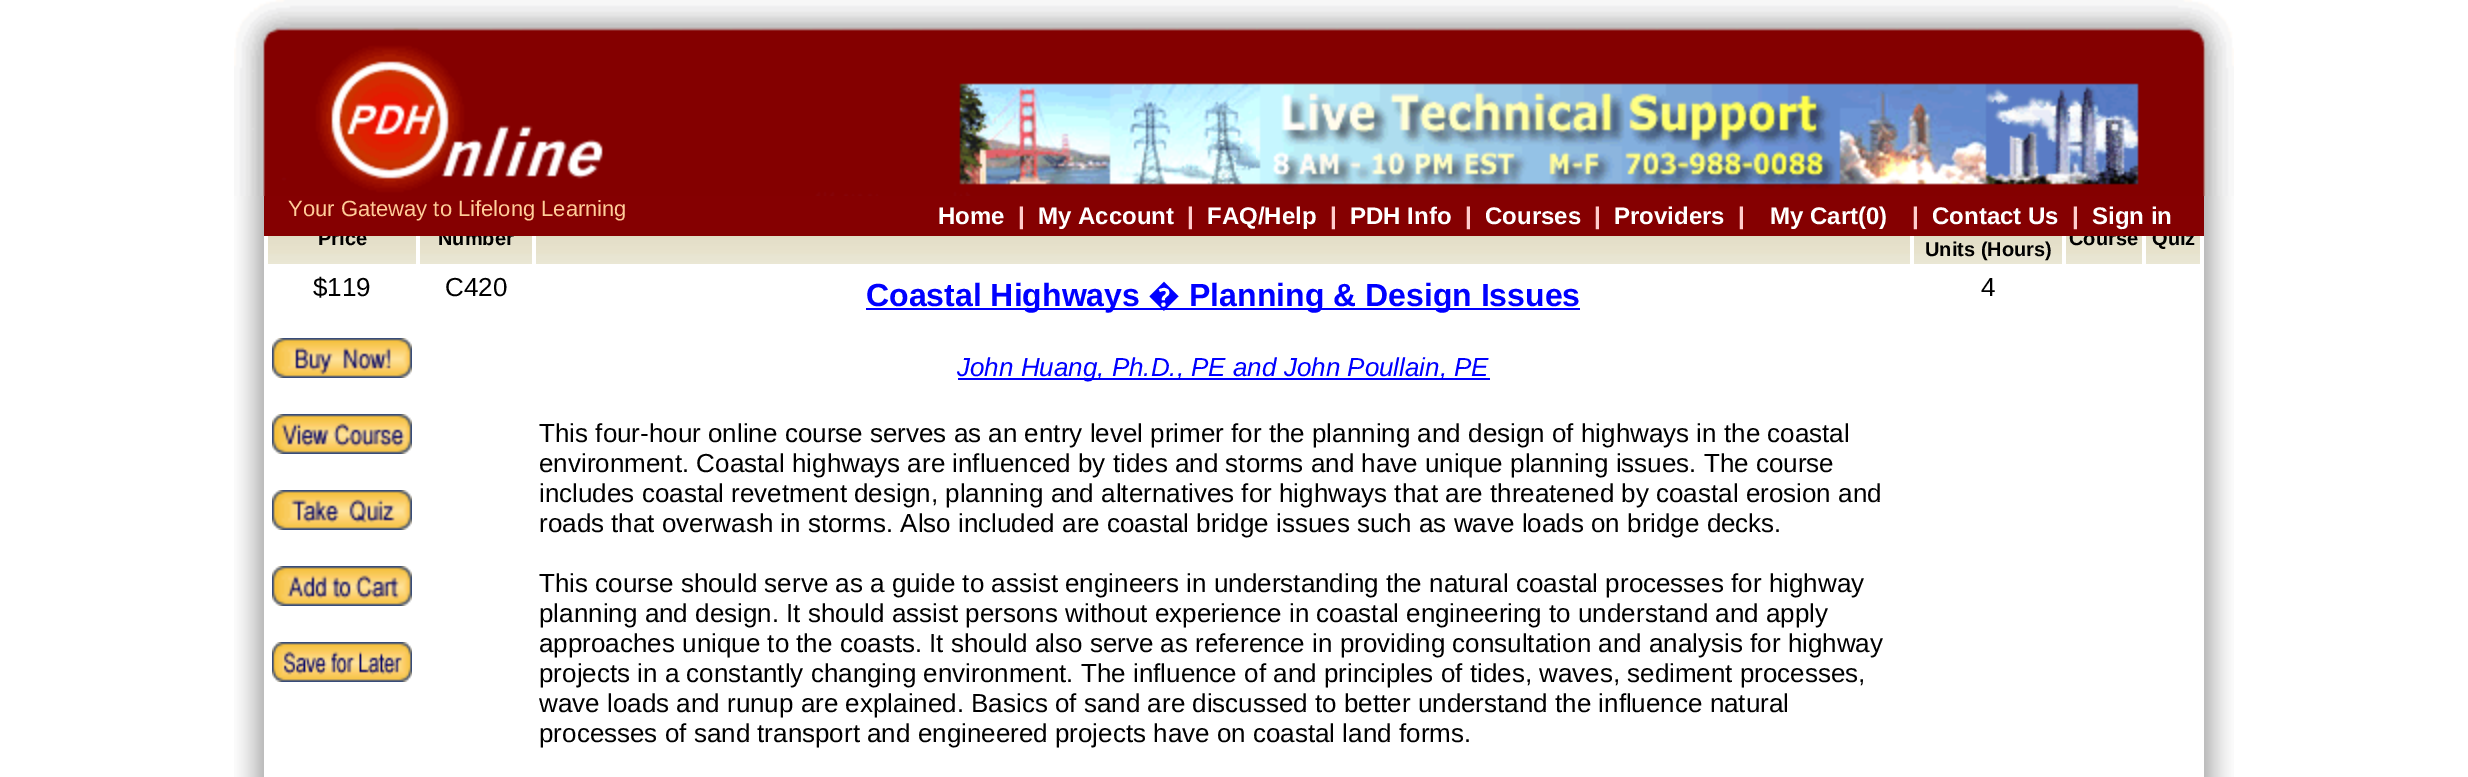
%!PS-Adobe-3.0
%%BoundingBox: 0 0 2468 777
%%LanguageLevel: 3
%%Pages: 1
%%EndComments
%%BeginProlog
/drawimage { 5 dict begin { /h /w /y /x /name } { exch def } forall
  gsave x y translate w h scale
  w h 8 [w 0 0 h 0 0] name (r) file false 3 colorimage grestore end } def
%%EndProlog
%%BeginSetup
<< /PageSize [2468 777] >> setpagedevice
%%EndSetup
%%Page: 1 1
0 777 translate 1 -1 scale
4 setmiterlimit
1 setgray
0 0 2468 777 rectfill
(images/1.raw) 234 0 2000 196 drawimage
(images/2.raw) 2204 196 30 581 drawimage
(images/3.raw) 234 196 30 581 drawimage
(images/4.raw) 268 236 148 28 drawimage
(images/5.raw) 420 236 112 28 drawimage
(images/6.raw) 536 236 1374 28 drawimage
(images/4.raw) 1914 236 148 28 drawimage
(images/7.raw) 2066 236 76 28 drawimage
(images/8.raw) 2146 236 54 28 drawimage
(images/9.raw) 272 338 140 40 drawimage
(images/10.raw) 272 414 140 40 drawimage
(images/11.raw) 272 490 140 40 drawimage
(images/12.raw) 272 566 140 40 drawimage
(images/13.raw) 272 642 140 40 drawimage
0 0 1 setrgbcolor
866 308 714 2 rectfill
958 378 532 2 rectfill
/LiberationSans-Bold [20 0 0 -20 0 0] selectfont
0 setgray
318 245 moveto (Price) show
438 245 moveto (Number) show
1925 256 moveto (Units \(Hours\)) show
2069 245 moveto (Course) show
2152 245 moveto (Quiz) show
0.522 0 0.004 setrgbcolor
264 196 1940 40 rectfill
/LiberationSans-Bold [24 0 0 -24 0 0] selectfont
1 setgray
938 224 moveto (Home) show
1 0.8 0.8 setrgbcolor
1018 224 moveto (|) show
1 setgray
1038 224 moveto (My Account) show
1 0.8 0.8 setrgbcolor
1187 224 moveto (|) show
1 setgray
1207 224 moveto (FAQ/Help) show
1 0.8 0.8 setrgbcolor
1330 224 moveto (|) show
1 setgray
1350 224 moveto (PDH Info) show
1 0.8 0.8 setrgbcolor
1465 224 moveto (|) show
1 setgray
1485 224 moveto (Courses) show
1 0.8 0.8 setrgbcolor
1594 224 moveto (|) show
1 setgray
1614 224 moveto (Providers) show
1 0.8 0.8 setrgbcolor
1738 224 moveto (|) show
1 setgray
1770 224 moveto (My Cart\(0\)) show
1 0.8 0.8 setrgbcolor
1912 224 moveto (|) show
1 setgray
1932 224 moveto (Contact Us) show
1 0.8 0.8 setrgbcolor
2072 224 moveto (|) show
1 setgray
2092 224 moveto (Sign in) show
/LiberationSans-Regular [22 0 0 -22 0 0] selectfont
1 0.8 0.6 setrgbcolor
288 216 moveto (Your Gateway to Lifelong Learning) show
/LiberationSans-Regular [26 0 0 -26 0 0] selectfont
0 setgray
313 296 moveto ($119) show
445 296 moveto (C420) show
/LiberationSans-Bold [32 0 0 -32 0 0] selectfont
0 0 1 setrgbcolor
866 306 moveto (Coastal Highways) show
/NotoSans-Bold [32 0 0 -32 0 0] selectfont
1148 306 moveto (�) show
/LiberationSans-Bold [32 0 0 -32 0 0] selectfont
1189 306 moveto (Planning & Design Issues) show
/LiberationSans-Italic [26 0 0 -26 0 0] selectfont
957 376 moveto (John Huang, Ph.D., PE and John Poullain, PE) show
/LiberationSans-Regular [26 0 0 -26 0 0] selectfont
0 setgray
539 442 moveto (This four-hour online course serves as an entry level primer for the planning and design of highways in the coastal) show
539 472 moveto (environment. Coastal highways are influenced by tides and storms and have unique planning issues. The course) show
539 502 moveto (includes coastal revetment design, planning and alternatives for highways that are threatened by coastal erosion and) show
539 532 moveto (roads that overwash in storms. Also included are coastal bridge issues such as wave loads on bridge decks.) show
539 592 moveto (This course should serve as a guide to assist engineers in understanding the natural coastal processes for highway) show
539 622 moveto (planning and design. It should assist persons without experience in coastal engineering to understand and apply) show
539 652 moveto (approaches unique to the coasts. It should also serve as reference in providing consultation and analysis for highway) show
539 682 moveto (projects in a constantly changing environment. The influence of and principles of tides, waves, sediment processes,) show
539 712 moveto (wave loads and runup are explained. Basics of sand are discussed to better understand the influence natural) show
539 742 moveto (processes of sand transport and engineered projects have on coastal land forms.) show
1981 296 moveto (4) show
showpage
%%EOF
